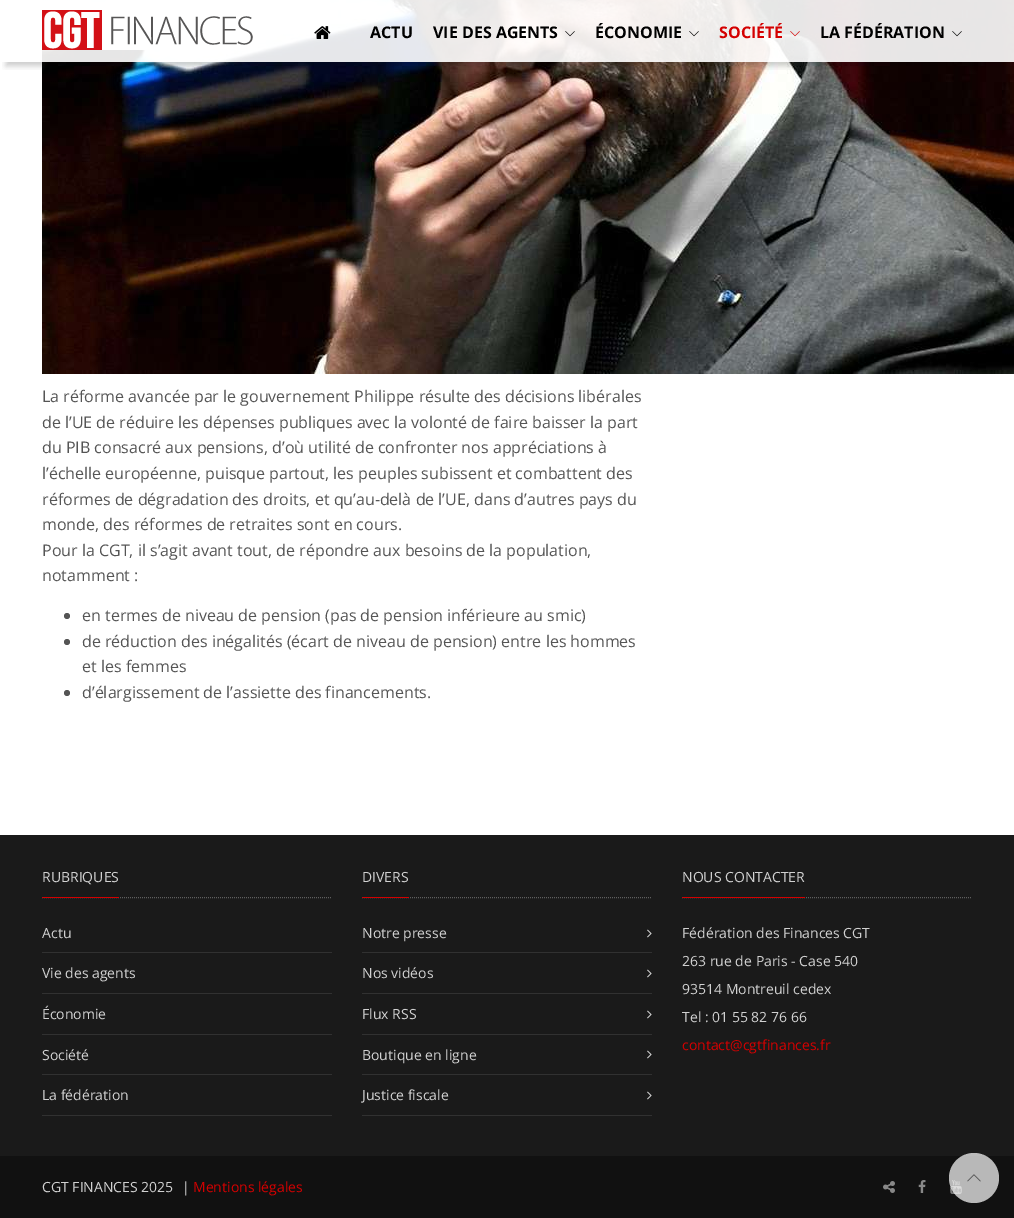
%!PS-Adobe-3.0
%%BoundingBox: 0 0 1014 1218
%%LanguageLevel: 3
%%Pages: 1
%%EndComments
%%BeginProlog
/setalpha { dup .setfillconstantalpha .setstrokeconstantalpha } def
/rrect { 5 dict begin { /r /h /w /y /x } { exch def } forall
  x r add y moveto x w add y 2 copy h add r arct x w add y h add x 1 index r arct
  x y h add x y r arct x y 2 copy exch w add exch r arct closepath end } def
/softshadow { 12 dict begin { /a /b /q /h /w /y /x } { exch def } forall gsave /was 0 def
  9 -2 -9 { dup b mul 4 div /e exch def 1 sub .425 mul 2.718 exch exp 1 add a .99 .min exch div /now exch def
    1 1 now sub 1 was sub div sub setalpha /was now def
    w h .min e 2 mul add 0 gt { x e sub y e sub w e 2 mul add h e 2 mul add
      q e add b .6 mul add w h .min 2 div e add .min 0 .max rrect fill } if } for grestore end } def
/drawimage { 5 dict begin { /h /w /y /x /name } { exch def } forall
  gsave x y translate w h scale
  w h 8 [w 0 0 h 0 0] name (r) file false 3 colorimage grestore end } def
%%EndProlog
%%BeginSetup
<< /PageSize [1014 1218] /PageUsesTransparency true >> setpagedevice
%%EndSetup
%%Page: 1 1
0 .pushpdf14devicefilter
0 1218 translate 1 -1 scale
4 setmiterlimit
1 setgray
0 0 1014 1218 rectfill
(images/7.raw) 42 0 972 374 drawimage
gsave
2 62 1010 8 rectclip
0 setgray
6 15 1002 51 0 3 0.2 softshadow
grestore
0.9 setalpha
42 0 972 62 rectfill
1 setalpha
(images/1.raw) 42 10 211 40 drawimage
(images/2.raw) 314 26 17 13 drawimage
(images/3.raw) 565 31 10 6 drawimage
(images/4.raw) 689 31 10 6 drawimage
(images/5.raw) 790 31 10 6 drawimage
(images/6.raw) 952 31 10 6 drawimage
0.333 setgray
newpath 67 616 3 0 360 arc closepath fill
newpath 67 642 3 0 360 arc closepath fill
newpath 67 693 3 0 360 arc closepath fill
0.102 setgray
0 835 1014 321 rectfill
0.373 setgray
[1 1] 0 setdash
newpath 42 897.5 moveto 332 897.5 lineto stroke
0.831 0 0 setrgbcolor
42 897 77 1 rectfill
0.192 setgray
42 952 290 1 rectfill
42 993 290 1 rectfill
42 1034 290 1 rectfill
42 1074 290 1 rectfill
42 1115 290 1 rectfill
0.373 setgray
newpath 362 897.5 moveto 652 897.5 lineto stroke
0.831 0 0 setrgbcolor
362 897 47 1 rectfill
0.192 setgray
362 952 290 1 rectfill
(images/8.raw) 647 929 5 9 drawimage
362 993 290 1 rectfill
(images/8.raw) 647 969 5 9 drawimage
362 1034 290 1 rectfill
(images/8.raw) 647 1010 5 9 drawimage
362 1074 290 1 rectfill
(images/8.raw) 647 1050 5 9 drawimage
362 1115 290 1 rectfill
(images/8.raw) 647 1091 5 9 drawimage
0.373 setgray
newpath 682 897.5 moveto 972 897.5 lineto stroke
0.831 0 0 setrgbcolor
682 897 123 1 rectfill
0.067 setgray
0 1156 1014 62 rectfill
(images/9.raw) 883 1181 12 12 drawimage
(images/10.raw) 918 1180 8 13 drawimage
(images/11.raw) 950 1180 12 14 drawimage
0.7 setalpha
1 setgray
newpath 974 1178 25 0 360 arc closepath fill
1 setalpha
(images/12.raw) 967 1174 14 8 drawimage
/OpenSans-Bold [16 0 0 -16 0 0] selectfont
0 setgray
370 38 moveto (ACTU) show
433 38 moveto (VIE DES AGENTS) show
595 38 moveto (ÉCONOMIE) show
0.831 0 0 setrgbcolor
719 38 moveto (SOCIÉTÉ) show
0 setgray
820 38 moveto (LA FÉDÉRATION) show
/OpenSans-Regular [16 0 0 -16 0 0] selectfont
0.333 setgray
42 402 moveto (La réforme avancée par le gouvernement Philippe résulte des décisions libérales) show
42 428 moveto (de l’UE de réduire les dépenses publiques avec la volonté de faire baisser la part) show
42 453 moveto (du PIB consacré aux pensions, d’où utilité de confronter nos appréciations à) show
42 479 moveto (l’échelle européenne, puisque partout, les peuples subissent et combattent des) show
42 505 moveto (réformes de dégradation des droits, et qu’au-delà de l’UE, dans d’autres pays du) show
42 530 moveto (monde, des réformes de retraites sont en cours.) show
42 556 moveto (Pour la CGT, il s’agit avant tout, de répondre aux besoins de la population,) show
42 581 moveto (notamment :) show
82 621 moveto (en termes de niveau de pension \(pas de pension inférieure au smic\)) show
82 647 moveto (de réduction des inégalités \(écart de niveau de pension\) entre les hommes) show
82 672 moveto (et les femmes) show
82 698 moveto (d’élargissement de l’assiette des financements.) show
/OpenSans-Regular [14 0 0 -14 0 0] selectfont
0.82 setgray
42 882 moveto (RUBRIQUES) show
42 938 moveto (Actu) show
42 978 moveto (Vie des agents) show
42 1019 moveto (Économie) show
42 1060 moveto (Société) show
42 1100 moveto (La fédération) show
362 882 moveto (DIVERS) show
362 938 moveto (Notre presse) show
362 978 moveto (Nos vidéos) show
362 1019 moveto (Flux RSS) show
362 1060 moveto (Boutique en ligne) show
362 1100 moveto (Justice fiscale) show
682 882 moveto (NOUS CONTACTER) show
682 938 moveto (Fédération des Finances CGT) show
682 966 moveto (263 rue de Paris - Case 540) show
682 994 moveto (93514 Montreuil cedex) show
682 1022 moveto (Tel : 01 55 82 76 66) show
0.831 0 0 setrgbcolor
682 1050 moveto (contact@cgtfinances.fr) show
0.82 setgray
42 1192 moveto (CGT FINANCES 2025) show
182 1192 moveto (|) show
0.831 0 0 setrgbcolor
193 1192 moveto (Mentions légales) show
.poppdf14devicefilter showpage
%%EOF
